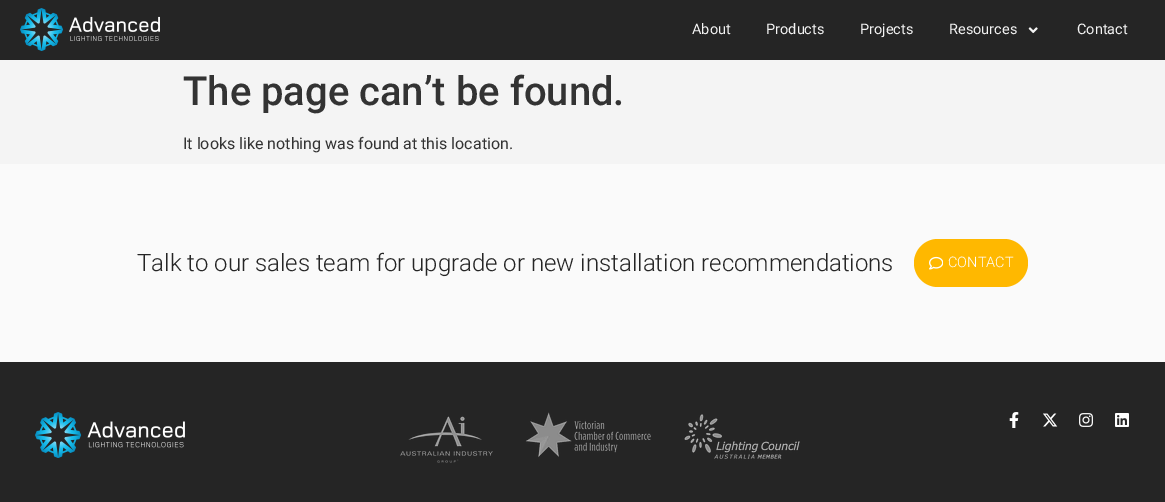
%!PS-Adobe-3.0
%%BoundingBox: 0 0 1165 502
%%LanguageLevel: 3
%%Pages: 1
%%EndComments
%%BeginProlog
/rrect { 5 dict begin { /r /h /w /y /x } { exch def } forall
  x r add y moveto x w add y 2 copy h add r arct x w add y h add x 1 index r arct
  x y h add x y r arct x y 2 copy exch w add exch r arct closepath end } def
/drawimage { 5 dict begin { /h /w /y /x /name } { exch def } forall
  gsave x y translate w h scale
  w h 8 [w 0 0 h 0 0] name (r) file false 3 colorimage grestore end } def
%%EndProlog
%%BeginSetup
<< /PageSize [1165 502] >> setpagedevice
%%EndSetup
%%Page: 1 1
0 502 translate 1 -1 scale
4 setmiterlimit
0.957 setgray
0 0 1165 502 rectfill
0.145 setgray
0 0 1165 60 rectfill
(images/1.raw) 20 8 140 43 drawimage
(images/2.raw) 1028 27 10 7 drawimage
0.98 setgray
0 164 1165 198 rectfill
1 0.722 0 setrgbcolor
914 239 114 48 24 rrect fill
(images/3.raw) 929 256 14 14 drawimage
0.145 setgray
0 362 1165 140 rectfill
(images/4.raw) 35 412 150 46 drawimage
(images/5.raw) 400 412 400 51 drawimage
(images/6.raw) 1009 412 10 16 drawimage
(images/7.raw) 1043 413 15 14 drawimage
(images/8.raw) 1079 413 14 14 drawimage
(images/9.raw) 1115 413 14 14 drawimage
/Roboto-Regular [14.5 0 0 -14.5 0 0] selectfont
0.957 setgray
692 34 moveto (About) show
766 34 moveto (Products) show
860 34 moveto (Projects) show
949 34 moveto (Resources) show
1077 34 moveto (Contact) show
/Roboto-Medium [40 0 0 -40 0 0] selectfont
0.2 setgray
183 105 moveto (The page can’t be found.) show
/Roboto-Regular [16 0 0 -16 0 0] selectfont
183 149 moveto (It looks like nothing was found at this location.) show
/Roboto-Light [24 0 0 -24 0 0] selectfont
0.145 setgray
137 271 moveto (Talk to our sales team for upgrade or new installation recommendations) show
/Roboto-Light [14.5 0 0 -14.5 0 0] selectfont
1 setgray
948 267 moveto (CONTACT) show
showpage
%%EOF
